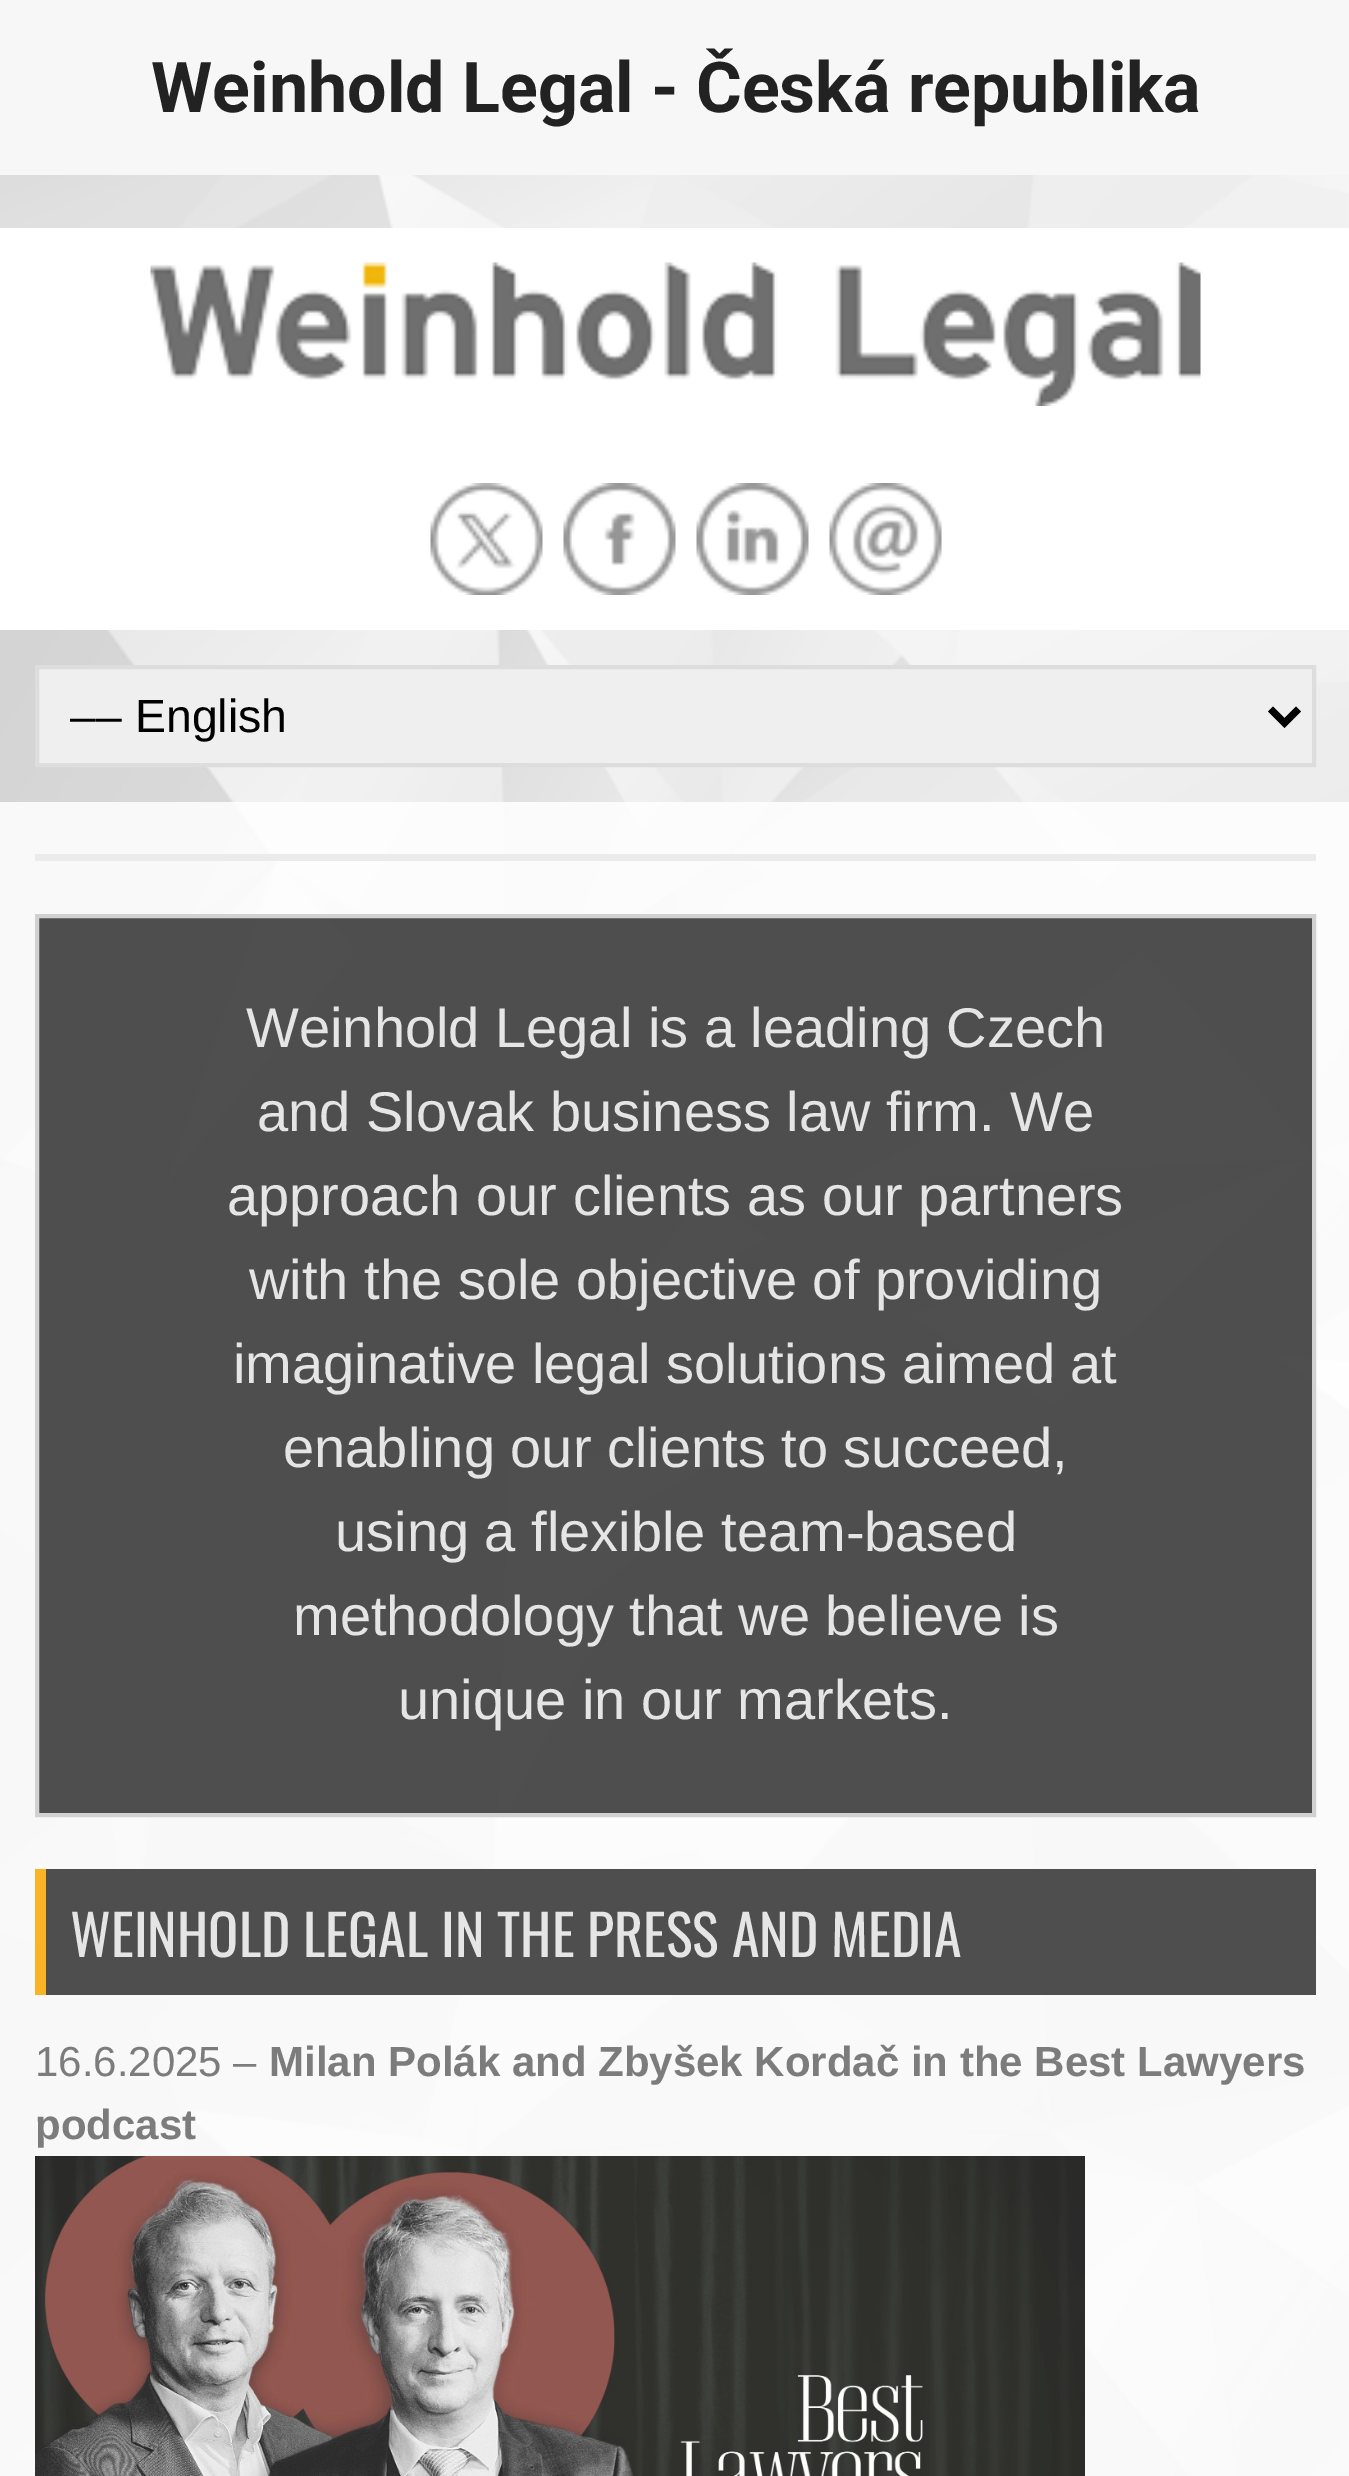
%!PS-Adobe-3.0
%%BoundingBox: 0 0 1349 2476
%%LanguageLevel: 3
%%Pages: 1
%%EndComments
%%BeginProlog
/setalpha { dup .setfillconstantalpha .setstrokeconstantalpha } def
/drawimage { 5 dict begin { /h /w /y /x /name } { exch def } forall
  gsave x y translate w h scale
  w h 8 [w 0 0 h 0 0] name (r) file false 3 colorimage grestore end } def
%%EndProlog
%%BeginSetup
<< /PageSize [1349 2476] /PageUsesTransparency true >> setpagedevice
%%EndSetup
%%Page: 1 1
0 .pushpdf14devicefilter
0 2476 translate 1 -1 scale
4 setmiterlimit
1 setgray
0 0 1349 2476 rectfill
(images/1.raw) 0 175 1349 2301 drawimage
0.969 setgray
0 0 1349 175 rectfill
1 setgray
0 228 1349 402 rectfill
(images/2.raw) 150 262 1051 144 drawimage
(images/3.raw) 430 483 113 112 drawimage
(images/4.raw) 563 483 113 112 drawimage
(images/5.raw) 696 483 113 112 drawimage
(images/6.raw) 829 483 113 112 drawimage
0.937 setgray
newpath 37 667 moveto 1314 667 lineto 1314 765 lineto 37 765 lineto closepath gsave fill grestore
0.867 setgray
4 setlinewidth
stroke
0 setgray
7 setlinewidth
newpath 1270.5 709 moveto 1284.5 723 lineto 1298.5 709 lineto stroke
0.85 setalpha
1 setgray
0 802 1349 1674 rectfill
1 setalpha
0.922 setgray
35 854 1281 7 rectfill
0.85 setalpha
0.188 setgray
newpath 37 916 moveto 1314 916 lineto 1314 1815 lineto 37 1815 lineto closepath fill
1 setalpha
0.82 setgray
4 setlinewidth
newpath 37 916 moveto 1314 916 lineto 1314 1815 lineto 37 1815 lineto closepath stroke
0.85 setalpha
0.188 setgray
46 1869 1270 126 rectfill
1 setalpha
0.973 0.706 0.149 setrgbcolor
35 1869 11 126 rectfill
(images/7.raw) 35 2156 1050 320 drawimage
/Roboto-Bold [70 0 0 -70 0 0] selectfont
0.133 setgray
151 112 moveto (Weinhold Legal - Česká republika) show
/LiberationSans-Regular [46.5 0 0 -46.5 0 0] selectfont
0 setgray
70 732 moveto (–– English) show
/LiberationSans-Regular [56 0 0 -56 0 0] selectfont
0.898 setgray
246 1047 moveto (Weinhold Legal is a leading Czech) show
257 1131 moveto (and Slovak business law firm. We) show
227 1215 moveto (approach our clients as our partners) show
249 1299 moveto (with the sole objective of providing) show
233 1383 moveto (imaginative legal solutions aimed at) show
283 1467 moveto (enabling our clients to succeed,) show
335 1551 moveto (using a flexible team-based) show
293 1635 moveto (methodology that we believe is) show
398 1719 moveto (unique in our markets.) show
/Oswald-Regular [56 0 0 -56 0 0] selectfont
70 1957 moveto (WEINHOLD LEGAL IN THE PRESS AND MEDIA) show
/LiberationSans-Regular [42 0 0 -42 0 0] selectfont
0.486 setgray
35 2076 moveto (16.6.2025 –) show
/LiberationSans-Bold [42 0 0 -42 0 0] selectfont
269 2076 moveto (Milan Polák and Zbyšek Kordač in the Best Lawyers) show
35 2139 moveto (podcast) show
.poppdf14devicefilter showpage
%%EOF
